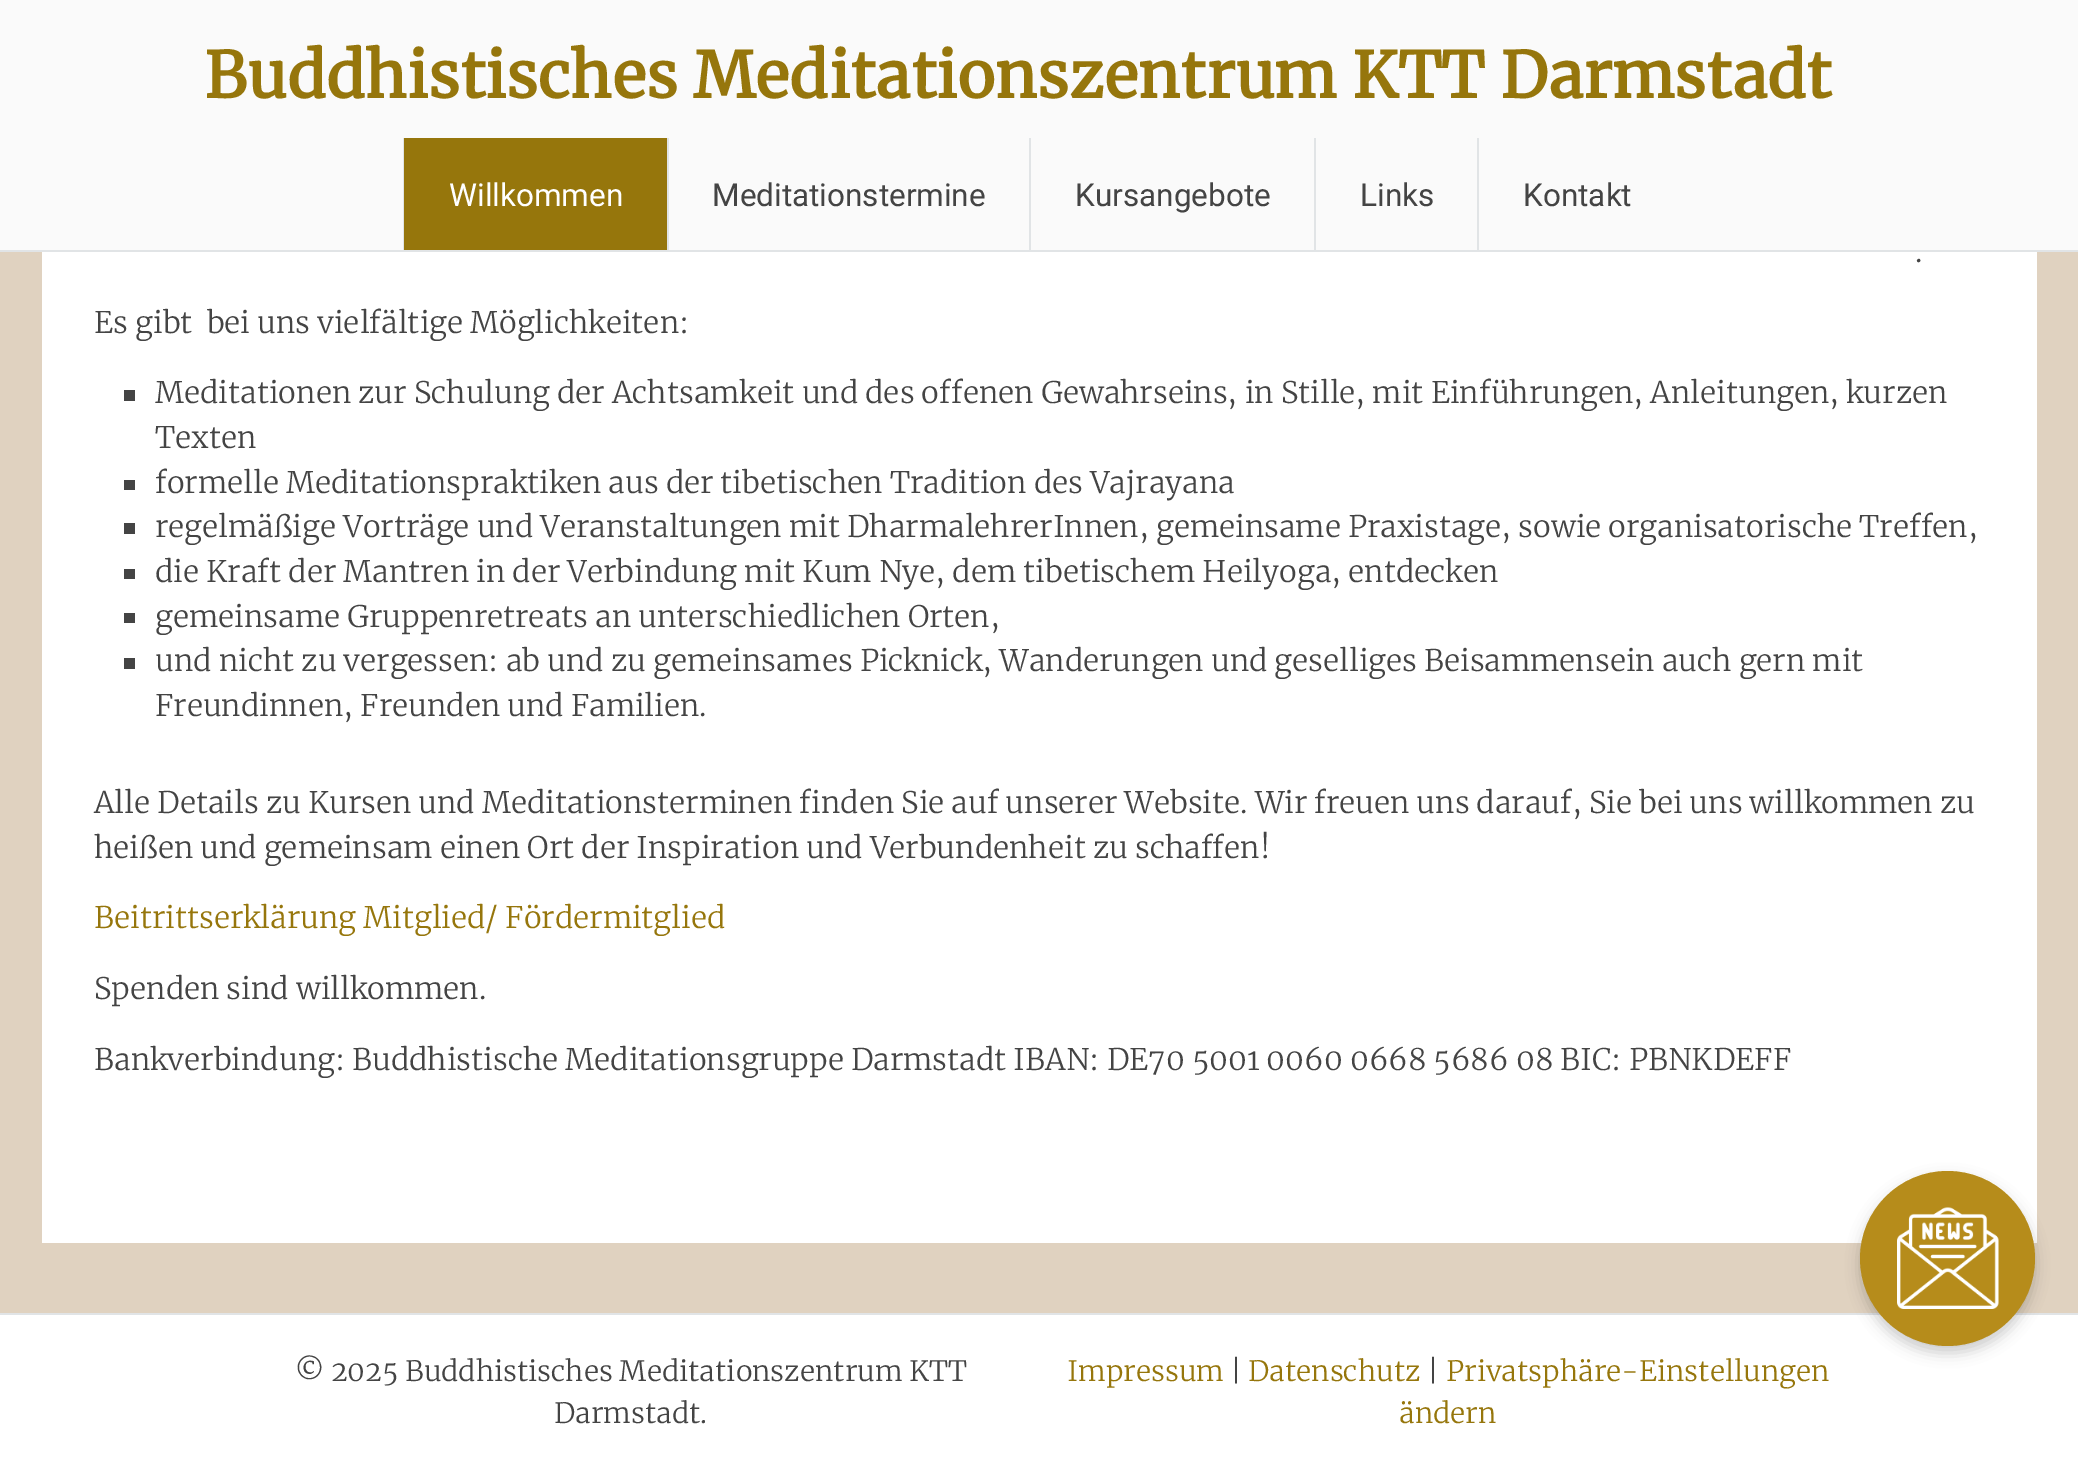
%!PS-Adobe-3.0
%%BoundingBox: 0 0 2078 1467
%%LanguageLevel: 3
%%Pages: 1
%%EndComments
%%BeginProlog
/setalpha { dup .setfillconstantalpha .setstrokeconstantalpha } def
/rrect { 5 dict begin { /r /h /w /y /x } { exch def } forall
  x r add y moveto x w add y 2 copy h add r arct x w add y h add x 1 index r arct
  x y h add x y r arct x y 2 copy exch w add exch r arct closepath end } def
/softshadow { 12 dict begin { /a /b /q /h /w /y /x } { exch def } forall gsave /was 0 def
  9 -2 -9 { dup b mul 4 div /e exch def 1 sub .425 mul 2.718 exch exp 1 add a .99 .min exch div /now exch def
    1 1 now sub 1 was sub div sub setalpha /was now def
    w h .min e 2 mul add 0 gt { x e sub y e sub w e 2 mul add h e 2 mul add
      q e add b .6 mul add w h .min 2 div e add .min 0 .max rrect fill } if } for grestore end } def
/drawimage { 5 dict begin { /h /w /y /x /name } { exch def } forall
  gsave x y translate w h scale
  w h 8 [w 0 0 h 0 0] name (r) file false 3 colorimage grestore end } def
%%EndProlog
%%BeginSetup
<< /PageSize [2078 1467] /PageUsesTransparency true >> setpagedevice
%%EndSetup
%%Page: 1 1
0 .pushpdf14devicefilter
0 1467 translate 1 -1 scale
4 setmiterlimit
1 setgray
0 0 2078 1467 rectfill
0.98 setgray
0 0 2078 250 rectfill
0.882 0.894 0.902 setrgbcolor
0 250 2078 2 rectfill
403 138 1 112 rectfill
0.588 0.463 0.047 setrgbcolor
404 138 263 112 rectfill
0.882 0.894 0.902 setrgbcolor
667 138 2 112 rectfill
1029 138 2 112 rectfill
1314 138 2 112 rectfill
1477 138 2 112 rectfill
0.878 0.824 0.753 setrgbcolor
0 252 2078 1061 rectfill
1 setgray
42 252 1995 991 rectfill
0.267 setgray
124 390 11 11 rectfill
124 480 11 10 rectfill
124 523 11 11 rectfill
124 569 11 10 rectfill
124 613 11 10 rectfill
124 658 11 11 rectfill
0.882 0.894 0.902 setrgbcolor
0 1313 2078 2 rectfill
0 setgray
1860 1178 175 175 87.5 7 0.2 softshadow
0.714 0.549 0.106 setrgbcolor
newpath 1947.5 1258.5 87.5 0 360 arc closepath fill
(images/1.raw) 1897 1207 102 102 drawimage
/Merriweather-Bold [63 0 0 -63 0 0] selectfont
0.588 0.463 0.047 setrgbcolor
204 98 moveto (Buddhistisches Meditationszentrum KTT Darmstadt) show
/Roboto-Regular [31.5 0 0 -31.5 0 0] selectfont
1 setgray
449 206 moveto (Willkommen) show
0.267 setgray
712 206 moveto (Meditationstermine) show
1075 206 moveto (Kursangebote) show
1360 206 moveto (Links) show
1523 206 moveto (Kontakt) show
/Merriweather-Light [29.75 0 0 -29.75 0 0] selectfont
1915 262 moveto (.) show
94 333 moveto (Es gibt  bei uns vielfältige Möglichkeiten:) show
155 403 moveto (Meditationen zur Schulung der Achtsamkeit und des offenen Gewahrseins, in Stille, mit Einführungen, Anleitungen, kurzen) show
155 448 moveto (Texten) show
155 493 moveto (formelle Meditationspraktiken aus der tibetischen Tradition des Vajrayana) show
155 537 moveto (regelmäßige Vorträge und Veranstaltungen mit DharmalehrerInnen, gemeinsame Praxistage, sowie organisatorische Treffen,) show
155 582 moveto (die Kraft der Mantren in der Verbindung mit Kum Nye, dem tibetischem Heilyoga, entdecken) show
155 627 moveto (gemeinsame Gruppenretreats an unterschiedlichen Orten,) show
155 671 moveto (und nicht zu vergessen: ab und zu gemeinsames Picknick, Wanderungen und geselliges Beisammensein auch gern mit) show
155 716 moveto (Freundinnen, Freunden und Familien.) show
94 813 moveto (Alle Details zu Kursen und Meditationsterminen finden Sie auf unserer Website. Wir freuen uns darauf, Sie bei uns willkommen zu) show
94 858 moveto (heißen und gemeinsam einen Ort der Inspiration und Verbundenheit zu schaffen!) show
0.588 0.463 0.047 setrgbcolor
94 928 moveto (Beitrittserklärung Mitglied/ Fördermitglied) show
0.267 setgray
94 999 moveto (Spenden sind willkommen.) show
94 1070 moveto (Bankverbindung: Buddhistische Meditationsgruppe Darmstadt IBAN: DE70 5001 0060 0668 5686 08 BIC: PBNKDEFF) show
/Merriweather-Light [28 0 0 -28 0 0] selectfont
295 1381 moveto (© 2025 Buddhistisches Meditationszentrum KTT) show
554 1423 moveto (Darmstadt.) show
0.588 0.463 0.047 setrgbcolor
1067 1381 moveto (Impressum) show
0.267 setgray
1230 1381 moveto (|) show
0.588 0.463 0.047 setrgbcolor
1248 1381 moveto (Datenschutz) show
0.267 setgray
1427 1381 moveto (|) show
0.588 0.463 0.047 setrgbcolor
1446 1381 moveto (Privatsphäre-Einstellungen) show
1399 1423 moveto (ändern) show
.poppdf14devicefilter showpage
%%EOF
